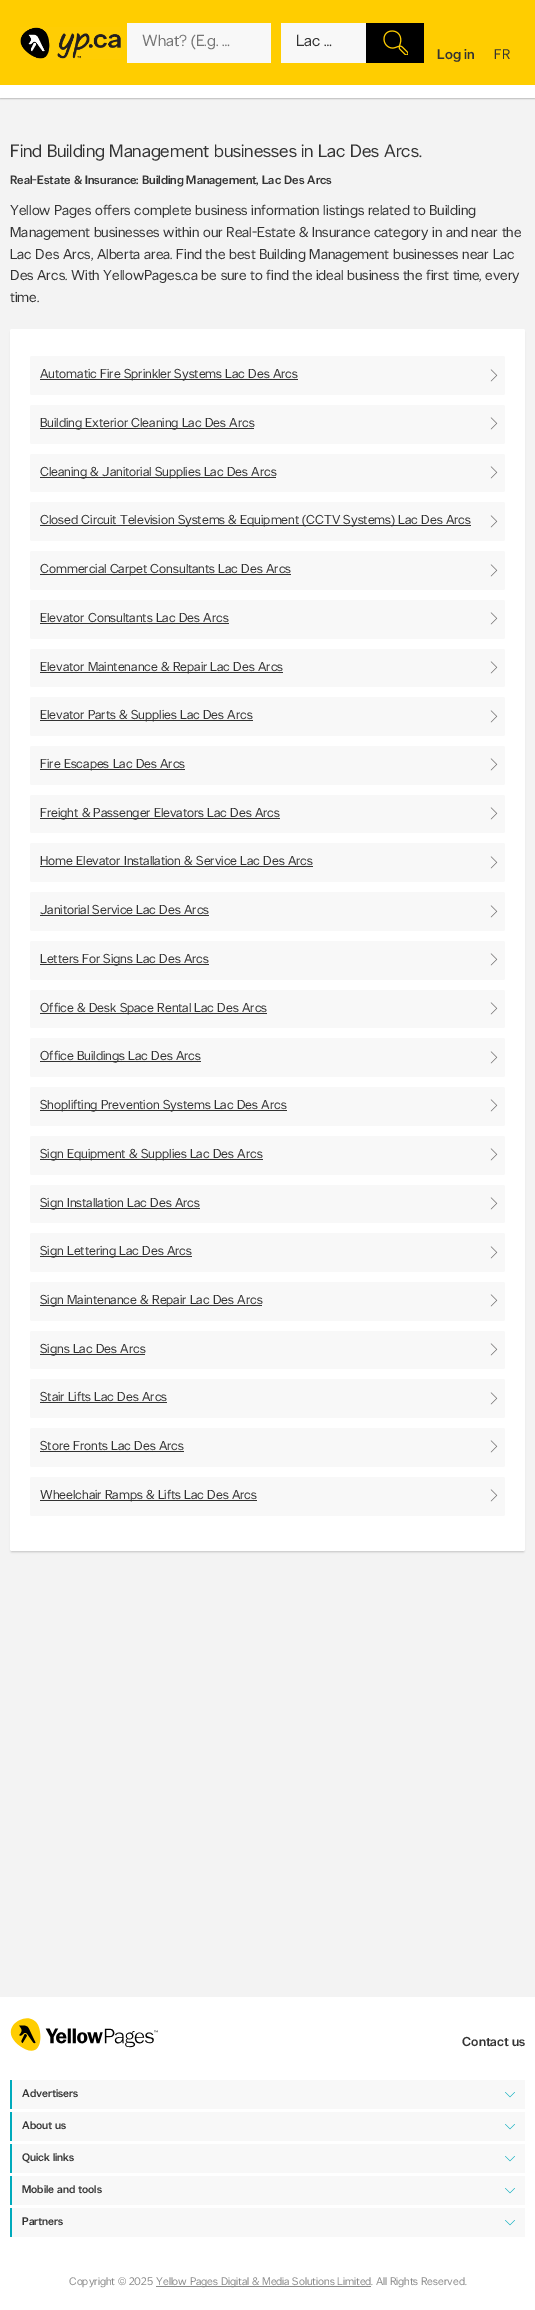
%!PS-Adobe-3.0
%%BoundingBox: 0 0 535 2310
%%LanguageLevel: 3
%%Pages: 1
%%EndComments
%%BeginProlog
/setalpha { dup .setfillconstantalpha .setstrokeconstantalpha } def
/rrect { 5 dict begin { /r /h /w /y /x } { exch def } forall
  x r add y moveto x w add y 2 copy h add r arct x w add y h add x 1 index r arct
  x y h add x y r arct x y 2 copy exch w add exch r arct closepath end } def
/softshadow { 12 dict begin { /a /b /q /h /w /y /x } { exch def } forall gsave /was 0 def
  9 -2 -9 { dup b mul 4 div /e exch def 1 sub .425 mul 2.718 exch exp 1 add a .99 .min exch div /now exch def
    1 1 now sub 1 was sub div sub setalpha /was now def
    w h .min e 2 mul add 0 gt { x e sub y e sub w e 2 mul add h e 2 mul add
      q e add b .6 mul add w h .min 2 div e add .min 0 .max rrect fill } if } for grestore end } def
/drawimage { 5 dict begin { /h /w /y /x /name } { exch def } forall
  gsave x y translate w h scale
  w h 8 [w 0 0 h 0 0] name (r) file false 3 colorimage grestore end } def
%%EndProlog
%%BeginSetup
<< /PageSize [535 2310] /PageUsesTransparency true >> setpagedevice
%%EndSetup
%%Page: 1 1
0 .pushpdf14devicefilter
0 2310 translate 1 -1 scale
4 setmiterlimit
0.953 setgray
0 0 535 2310 rectfill
0 setgray
0 55 535 44 0 0.5 0.2 softshadow
1 0.804 0 setrgbcolor
0 0 535 85 rectfill
(images/1.raw) 20 27 101 32 drawimage
0.973 setgray
127 23 144 40 rectfill
281 23 85 40 rectfill
0 setgray
366 23 58 40 rectfill
(images/2.raw) 383 30 25 25 drawimage
1 setgray
0 85 535 13 rectfill
0 setgray
11 332 513 1220 1 1 0.2 softshadow
1 setgray
10 329 515 1222 2 rrect fill
0.973 setgray
30 356 475 39 2 rrect fill
0.2 setgray
40 379 258 1 rectfill
(images/3.raw) 490 369 8 13 drawimage
0.973 setgray
30 405 475 39 2 rrect fill
0.2 setgray
40 428 214 1 rectfill
(images/3.raw) 490 417 8 13 drawimage
0.973 setgray
30 454 475 38 2 rrect fill
0.2 setgray
40 477 236 1 rectfill
(images/3.raw) 490 466 8 13 drawimage
0.973 setgray
30 502 475 39 2 rrect fill
0.2 setgray
40 525 431 1 rectfill
(images/3.raw) 490 515 8 13 drawimage
0.973 setgray
30 551 475 39 2 rrect fill
0.2 setgray
40 574 251 1 rectfill
(images/3.raw) 490 564 8 13 drawimage
0.973 setgray
30 600 475 39 2 rrect fill
0.2 setgray
40 623 189 1 rectfill
(images/3.raw) 490 612 8 13 drawimage
0.973 setgray
30 649 475 38 2 rrect fill
0.2 setgray
40 672 243 1 rectfill
(images/3.raw) 490 661 8 13 drawimage
0.973 setgray
30 697 475 39 2 rrect fill
0.2 setgray
40 720 213 1 rectfill
(images/3.raw) 490 710 8 13 drawimage
0.973 setgray
30 746 475 39 2 rrect fill
0.2 setgray
40 769 145 1 rectfill
(images/3.raw) 490 758 8 13 drawimage
0.973 setgray
30 795 475 38 2 rrect fill
0.2 setgray
40 818 240 1 rectfill
(images/3.raw) 490 807 8 13 drawimage
0.973 setgray
30 843 475 39 2 rrect fill
0.2 setgray
40 866 273 1 rectfill
(images/3.raw) 490 856 8 13 drawimage
0.973 setgray
30 892 475 39 2 rrect fill
0.2 setgray
40 915 169 1 rectfill
(images/3.raw) 490 905 8 13 drawimage
0.973 setgray
30 941 475 39 2 rrect fill
0.2 setgray
40 964 169 1 rectfill
(images/3.raw) 490 953 8 13 drawimage
0.973 setgray
30 990 475 38 2 rrect fill
0.2 setgray
40 1013 227 1 rectfill
(images/3.raw) 490 1002 8 13 drawimage
0.973 setgray
30 1038 475 39 2 rrect fill
0.2 setgray
40 1061 161 1 rectfill
(images/3.raw) 490 1051 8 13 drawimage
0.973 setgray
30 1087 475 39 2 rrect fill
0.2 setgray
40 1110 247 1 rectfill
(images/3.raw) 490 1099 8 13 drawimage
0.973 setgray
30 1136 475 39 2 rrect fill
0.2 setgray
40 1159 223 1 rectfill
(images/3.raw) 490 1148 8 13 drawimage
0.973 setgray
30 1185 475 38 2 rrect fill
0.2 setgray
40 1208 160 1 rectfill
(images/3.raw) 490 1197 8 13 drawimage
0.973 setgray
30 1233 475 39 2 rrect fill
0.2 setgray
40 1256 152 1 rectfill
(images/3.raw) 490 1246 8 13 drawimage
0.973 setgray
30 1282 475 39 2 rrect fill
0.2 setgray
40 1305 222 1 rectfill
(images/3.raw) 490 1294 8 13 drawimage
0.973 setgray
30 1331 475 38 2 rrect fill
0.2 setgray
40 1354 105 1 rectfill
(images/3.raw) 490 1343 8 13 drawimage
0.973 setgray
30 1379 475 39 2 rrect fill
0.2 setgray
40 1402 127 1 rectfill
(images/3.raw) 490 1392 8 13 drawimage
0.973 setgray
30 1428 475 39 2 rrect fill
0.2 setgray
40 1451 144 1 rectfill
(images/3.raw) 490 1440 8 13 drawimage
0.973 setgray
30 1477 475 39 2 rrect fill
0.2 setgray
40 1500 217 1 rectfill
(images/3.raw) 490 1489 8 13 drawimage
1 setgray
0 1997 535 313 rectfill
(images/4.raw) 10 2018 148 33 drawimage
0.973 setgray
12 2080 513 29 rectfill
0 0.667 0.737 setrgbcolor
10 2080 2 29 rectfill
(images/5.raw) 505 2092 10 6 drawimage
0.973 setgray
12 2112 513 29 rectfill
0 0.667 0.737 setrgbcolor
10 2112 2 29 rectfill
(images/5.raw) 505 2124 10 6 drawimage
0.973 setgray
12 2144 513 29 rectfill
0 0.667 0.737 setrgbcolor
10 2144 2 29 rectfill
(images/5.raw) 505 2156 10 6 drawimage
0.973 setgray
12 2176 513 29 rectfill
0 0.667 0.737 setrgbcolor
10 2176 2 29 rectfill
(images/5.raw) 505 2188 10 6 drawimage
0.973 setgray
12 2208 513 29 rectfill
0 0.667 0.737 setrgbcolor
10 2208 2 29 rectfill
(images/5.raw) 505 2220 10 6 drawimage
0.541 setgray
156 2286 215 1 rectfill
/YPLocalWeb-Regular [16 0 0 -16 0 0] selectfont
0.459 setgray
142 46 moveto (What? \(E.g. …) show
0.2 setgray
296 46 moveto (Lac …) show
/YPLocalWeb-Medium [14 0 0 -14 0 0] selectfont
437 59 moveto (Log in) show
/YPLocalWeb-Regular [14 0 0 -14 0 0] selectfont
494 59 moveto (FR) show
/YPLocalWeb-Regular [18 0 0 -18 0 0] selectfont
10 157 moveto (Find Building Management businesses in Lac Des Arcs.) show
/YPLocalWeb-Medium [12 0 0 -12 0 0] selectfont
10 184 moveto (Real-Estate & Insurance: Building Management, Lac Des Arcs) show
/YPLocalWeb-Regular [14.4 0 0 -14.4 0 0] selectfont
10 215 moveto (Yellow Pages offers complete business information listings related to Building) show
10 237 moveto (Management businesses within our Real-Estate & Insurance category in and near the) show
10 259 moveto (Lac Des Arcs, Alberta area. Find the best Building Management businesses near Lac) show
10 280 moveto (Des Arcs. With YellowPages.ca be sure to find the ideal business the first time, every) show
10 302 moveto (time.) show
/YPLocalWeb-Regular [13 0 0 -13 0 0] selectfont
40 378 moveto (Automatic Fire Sprinkler Systems Lac Des Arcs) show
40 427 moveto (Building Exterior Cleaning Lac Des Arcs) show
40 476 moveto (Cleaning & Janitorial Supplies Lac Des Arcs) show
40 524 moveto (Closed Circuit Television Systems & Equipment \(CCTV Systems\) Lac Des Arcs) show
40 573 moveto (Commercial Carpet Consultants Lac Des Arcs) show
40 622 moveto (Elevator Consultants Lac Des Arcs) show
40 671 moveto (Elevator Maintenance & Repair Lac Des Arcs) show
40 719 moveto (Elevator Parts & Supplies Lac Des Arcs) show
40 768 moveto (Fire Escapes Lac Des Arcs) show
40 817 moveto (Freight & Passenger Elevators Lac Des Arcs) show
40 865 moveto (Home Elevator Installation & Service Lac Des Arcs) show
40 914 moveto (Janitorial Service Lac Des Arcs) show
40 963 moveto (Letters For Signs Lac Des Arcs) show
40 1012 moveto (Office & Desk Space Rental Lac Des Arcs) show
40 1060 moveto (Office Buildings Lac Des Arcs) show
40 1109 moveto (Shoplifting Prevention Systems Lac Des Arcs) show
40 1158 moveto (Sign Equipment & Supplies Lac Des Arcs) show
40 1207 moveto (Sign Installation Lac Des Arcs) show
40 1255 moveto (Sign Lettering Lac Des Arcs) show
40 1304 moveto (Sign Maintenance & Repair Lac Des Arcs) show
40 1353 moveto (Signs Lac Des Arcs) show
40 1401 moveto (Stair Lifts Lac Des Arcs) show
40 1450 moveto (Store Fronts Lac Des Arcs) show
40 1499 moveto (Wheelchair Ramps & Lifts Lac Des Arcs) show
/YPLocalWeb-Medium [13 0 0 -13 0 0] selectfont
462 2046 moveto (Contact us) show
/YPLocalWeb-Medium [11 0 0 -11 0 0] selectfont
22 2097 moveto (Advertisers) show
22 2129 moveto (About us) show
22 2161 moveto (Quick links) show
22 2193 moveto (Mobile and tools) show
22 2225 moveto (Partners) show
/YPLocalWeb-Regular [11 0 0 -11 0 0] selectfont
0.541 setgray
69 2285 moveto (Copyright © 2025) show
156 2285 moveto (Yellow Pages Digital & Media Solutions Limited. All Rights Reserved.) show
.poppdf14devicefilter showpage
%%EOF
